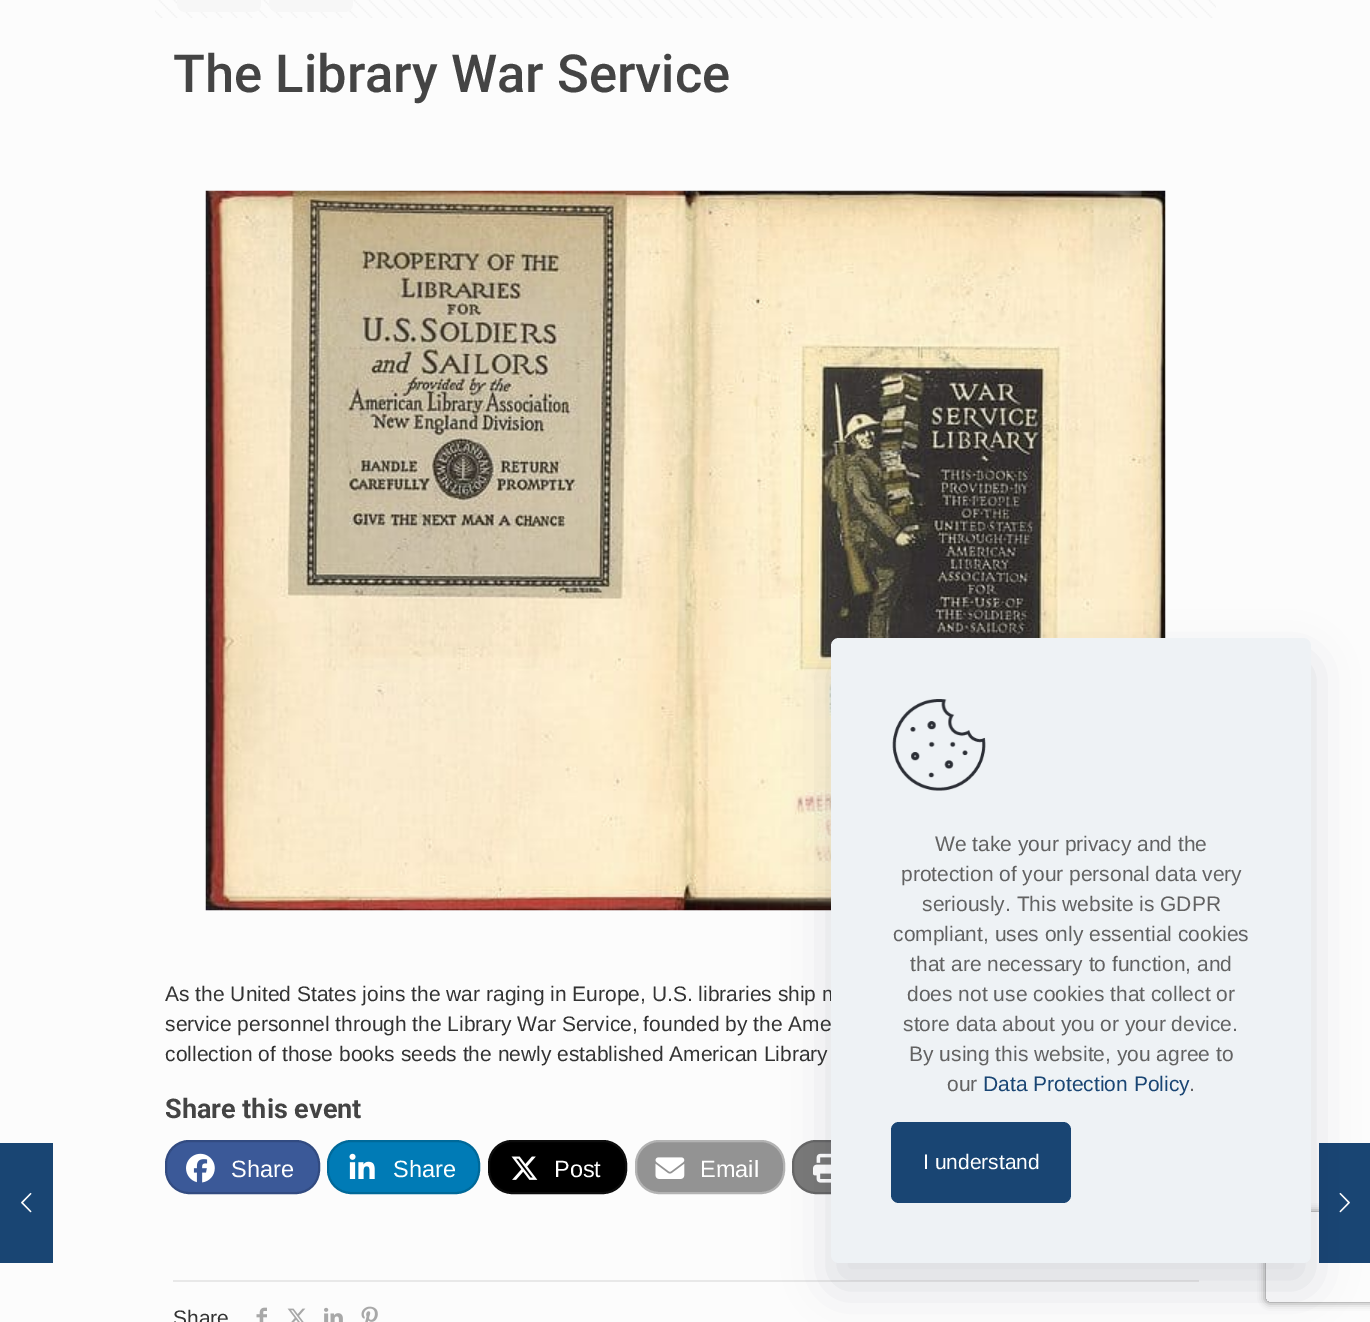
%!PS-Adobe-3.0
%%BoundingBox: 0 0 1370 1322
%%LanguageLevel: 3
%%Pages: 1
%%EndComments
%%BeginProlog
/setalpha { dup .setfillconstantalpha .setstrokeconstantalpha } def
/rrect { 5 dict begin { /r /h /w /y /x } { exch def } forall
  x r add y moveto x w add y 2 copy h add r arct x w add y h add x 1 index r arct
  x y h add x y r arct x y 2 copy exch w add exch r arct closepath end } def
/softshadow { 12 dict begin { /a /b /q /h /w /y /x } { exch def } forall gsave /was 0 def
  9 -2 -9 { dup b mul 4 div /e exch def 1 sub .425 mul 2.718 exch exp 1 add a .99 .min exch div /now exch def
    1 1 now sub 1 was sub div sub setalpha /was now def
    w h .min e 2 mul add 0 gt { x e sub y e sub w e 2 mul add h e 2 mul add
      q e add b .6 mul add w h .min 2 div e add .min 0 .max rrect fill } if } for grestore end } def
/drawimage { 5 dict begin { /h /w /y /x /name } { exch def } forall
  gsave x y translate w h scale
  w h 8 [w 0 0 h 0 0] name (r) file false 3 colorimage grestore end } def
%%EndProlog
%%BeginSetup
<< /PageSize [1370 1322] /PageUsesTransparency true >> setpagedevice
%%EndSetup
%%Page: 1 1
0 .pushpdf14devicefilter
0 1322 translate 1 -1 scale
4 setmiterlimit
0.988 setgray
0 0 1370 1322 rectfill
(images/1.raw) 155 0 1061 18 drawimage
0.969 setgray
177 -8 84 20 8 rrect fill
269 -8 84 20 8 rrect fill
(images/2.raw) 205 190 961 721 drawimage
0.231 0.349 0.596 setrgbcolor
166 1141 153 52 23 rrect gsave fill grestore
0.196 0.294 0.506 setrgbcolor
2 setlinewidth
stroke
(images/3.raw) 186 1153 29 30 drawimage
0 0.482 0.714 setrgbcolor
328 1141 151 52 23 rrect gsave fill grestore
0 0.412 0.6 setrgbcolor
stroke
(images/4.raw) 349 1153 26 26 drawimage
0 setgray
489 1141 137 52 23 rrect gsave fill grestore
0.051 setgray
stroke
(images/5.raw) 511 1156 27 24 drawimage
0.576 setgray
636 1141 148 52 23 rrect gsave fill grestore
0.702 setgray
stroke
(images/6.raw) 655 1157 30 22 drawimage
0.471 setgray
793 1141 138 52 23 rrect gsave fill grestore
0.4 setgray
stroke
(images/7.raw) 813 1153 18 30 drawimage
0.91 setgray
173 1280 1026 2 rectfill
(images/8.raw) 256 1307 11 15 drawimage
(images/9.raw) 287 1308 19 14 drawimage
(images/10.raw) 324 1307 19 15 drawimage
(images/11.raw) 361 1306 17 16 drawimage
gsave
newpath 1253 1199 moveto 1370 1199 lineto 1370 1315 lineto 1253 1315 lineto closepath 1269 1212 moveto 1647 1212 lineto 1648.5 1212 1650 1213.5 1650 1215 curveto 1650 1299 lineto 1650 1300.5 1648.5 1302 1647 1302 curveto 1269 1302 lineto 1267.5 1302 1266 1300.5 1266 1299 curveto 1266 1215 lineto 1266 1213.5 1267.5 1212 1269 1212 curveto closepath eoclip newpath
0.502 setgray
1266 1212 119 90 3 4 1 softshadow
grestore
0.098 0.271 0.451 setrgbcolor
1319 1143 51 120 rectfill
(images/14.raw) 1339 1192 11 21 drawimage
0.004 0.027 0.153 setrgbcolor
831 660 480 626 8 22.5 0.13 softshadow
0.098 0.271 0.451 setrgbcolor
0 1143 53 120 rectfill
(images/13.raw) 21 1192 11 21 drawimage
/Roboto-Medium [52.5 0 0 -52.5 0 0] selectfont
0.267 setgray
173 92 moveto (The Library War Service) show
/LiberationSans-Regular [21 0 0 -21 0 0] selectfont
0.2 setgray
165 1001 moveto (As the United States joins the war raging in Europe, U.S. libraries ship m) show
165 1031 moveto (service personnel through the Library War Service, founded by the Ame) show
165 1061 moveto (collection of those books seeds the newly established American Library) show
/Roboto-Bold [27 0 0 -27 0 0] selectfont
0.267 setgray
165 1118 moveto (Share this event) show
/LiberationSans-Regular [23.5 0 0 -23.5 0 0] selectfont
1 setgray
231 1177 moveto (Share) show
393 1177 moveto (Share) show
554 1177 moveto (Post) show
700 1177 moveto (Email) show
/LiberationSans-Regular [21 0 0 -21 0 0] selectfont
0.2 setgray
173 1325 moveto (Share) show
0.933 0.949 0.961 setrgbcolor
831 638 480 625 8 rrect fill
(images/12.raw) 892 699 94 92 drawimage
0.384 setgray
935 851 moveto (We take your privacy and the) show
901 881 moveto (protection of your personal data very) show
922 911 moveto (seriously. This website is GDPR) show
893 941 moveto (compliant, uses only essential cookies) show
910 971 moveto (that are necessary to function, and) show
907 1001 moveto (does not use cookies that collect or) show
903 1031 moveto (store data about you or your device.) show
909 1061 moveto (By using this website, you agree to) show
947 1091 moveto (our) show
0.098 0.271 0.451 setrgbcolor
983 1091 moveto (Data Protection Policy) show
0.384 setgray
1189 1091 moveto (.) show
0.098 0.271 0.451 setrgbcolor
891 1122 180 81 8 rrect fill
1 setgray
923 1169 moveto (I understand) show
.poppdf14devicefilter showpage
%%EOF
